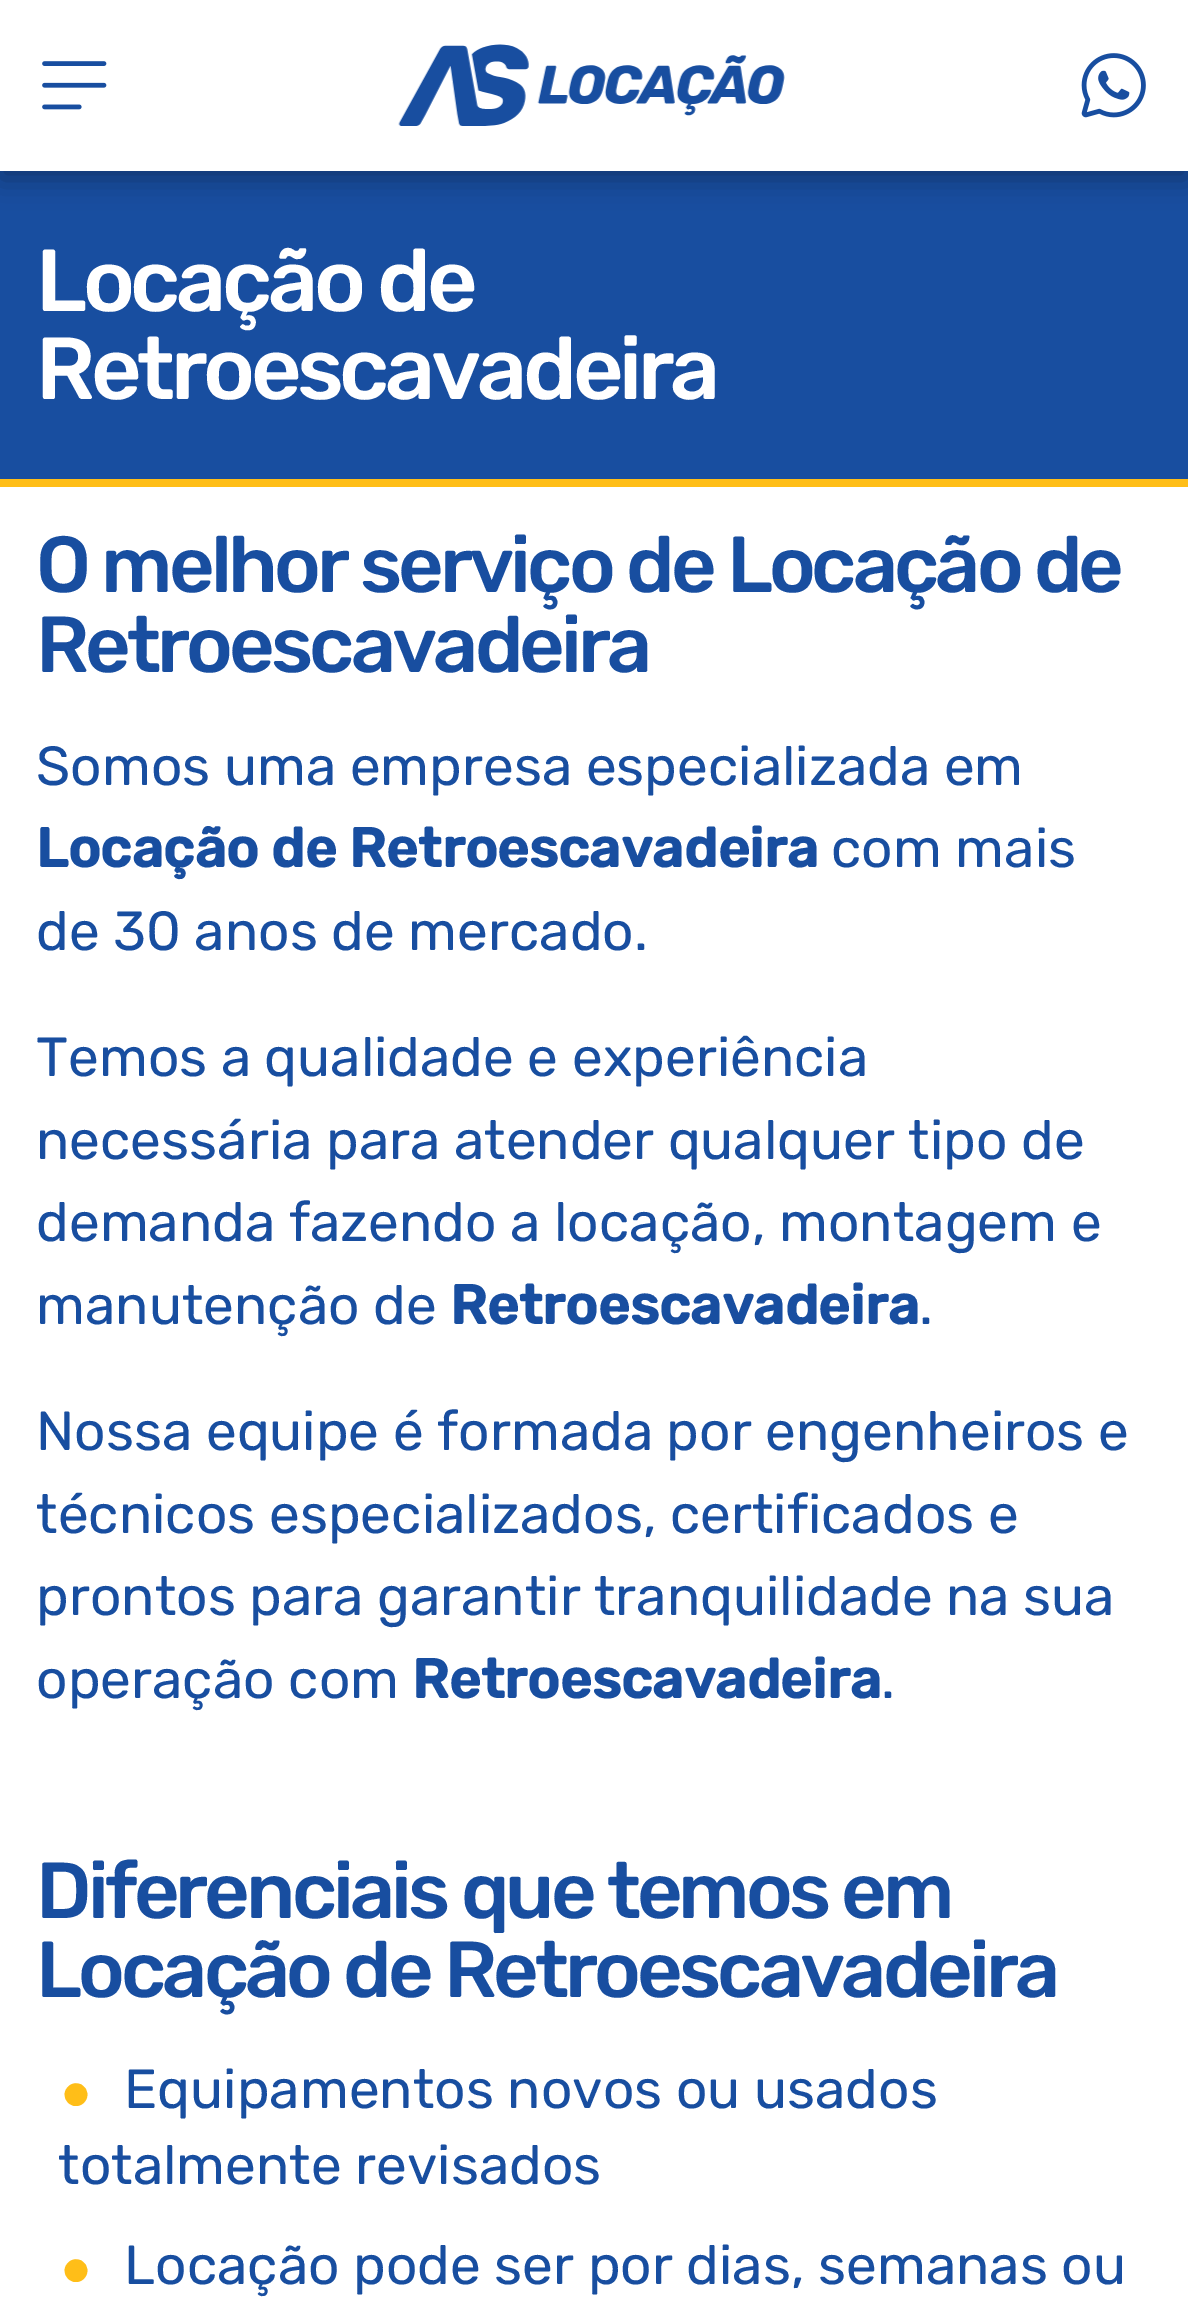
%!PS-Adobe-3.0
%%BoundingBox: 0 0 1188 2298
%%LanguageLevel: 3
%%Pages: 1
%%EndComments
%%BeginProlog
/setalpha { dup .setfillconstantalpha .setstrokeconstantalpha } def
/rrect { 5 dict begin { /r /h /w /y /x } { exch def } forall
  x r add y moveto x w add y 2 copy h add r arct x w add y h add x 1 index r arct
  x y h add x y r arct x y 2 copy exch w add exch r arct closepath end } def
/softshadow { 12 dict begin { /a /b /q /h /w /y /x } { exch def } forall gsave /was 0 def
  9 -2 -9 { dup b mul 4 div /e exch def 1 sub .425 mul 2.718 exch exp 1 add a .99 .min exch div /now exch def
    1 1 now sub 1 was sub div sub setalpha /was now def
    w h .min e 2 mul add 0 gt { x e sub y e sub w e 2 mul add h e 2 mul add
      q e add b .6 mul add w h .min 2 div e add .min 0 .max rrect fill } if } for grestore end } def
/drawimage { 5 dict begin { /h /w /y /x /name } { exch def } forall
  gsave x y translate w h scale
  w h 8 [w 0 0 h 0 0] name (r) file false 3 colorimage grestore end } def
%%EndProlog
%%BeginSetup
<< /PageSize [1188 2298] /PageUsesTransparency true >> setpagedevice
%%EndSetup
%%Page: 1 1
0 .pushpdf14devicefilter
0 2298 translate 1 -1 scale
4 setmiterlimit
1 setgray
0 0 1188 2298 rectfill
0.094 0.306 0.627 setrgbcolor
0 171 1188 308 rectfill
0 setgray
0 8 1188 171 0 14 0.3 softshadow
1 setgray
0 0 1188 171 rectfill
(images/1.raw) 42 61 65 49 drawimage
(images/2.raw) 398 44 387 82 drawimage
(images/3.raw) 1081 53 65 65 drawimage
1 0.745 0.094 setrgbcolor
0 479 1188 8 rectfill
/Rubik-Medium [88 0 0 -88 0 0] selectfont
1 setgray
36 311 moveto -4.4 0 (Locação de) ashow
36 399 moveto -4.4 0 (Retroescavadeira) ashow
/Rubik-Medium [79.25 0 0 -79.25 0 0] selectfont
0.094 0.306 0.627 setrgbcolor
36 592 moveto -3.95 0 (O melhor serviço de Locação de) ashow
36 672 moveto -3.95 0 (Retroescavadeira) ashow
/Rubik-Regular [55 0 0 -55 0 0] selectfont
36 785 moveto (Somos uma empresa especializada em) show
/Rubik-Bold [55 0 0 -55 0 0] selectfont
36 867 moveto (Locação de Retroescavadeira) show
/Rubik-Regular [55 0 0 -55 0 0] selectfont
831 867 moveto (com mais) show
36 950 moveto (de 30 anos de mercado.) show
36 1076 moveto (Temos a qualidade e experiência) show
36 1159 moveto (necessária para atender qualquer tipo de) show
36 1241 moveto (demanda fazendo a locação, montagem e) show
36 1324 moveto (manutenção de) show
/Rubik-Bold [55 0 0 -55 0 0] selectfont
450 1324 moveto (Retroescavadeira) show
/Rubik-Regular [55 0 0 -55 0 0] selectfont
919 1324 moveto (.) show
36 1450 moveto (Nossa equipe é formada por engenheiros e) show
36 1533 moveto (técnicos especializados, certificados e) show
36 1615 moveto (prontos para garantir tranquilidade na sua) show
36 1698 moveto (operação com) show
/Rubik-Bold [55 0 0 -55 0 0] selectfont
412 1698 moveto (Retroescavadeira) show
/Rubik-Regular [55 0 0 -55 0 0] selectfont
881 1698 moveto (.) show
/Rubik-Medium [79.25 0 0 -79.25 0 0] selectfont
36 1918 moveto -3.95 0 (Diferenciais que temos em) ashow
36 1997 moveto -3.95 0 (Locação de Retroescavadeira) ashow
/Rubik-Bold [88 0 0 -88 0 0] selectfont
1 0.745 0.094 setrgbcolor
58 2124 moveto (•) show
/Rubik-Regular [55 0 0 -55 0 0] selectfont
0.094 0.306 0.627 setrgbcolor
124 2108 moveto (Equipamentos novos ou usados) show
58 2184 moveto (totalmente revisados) show
/Rubik-Bold [88 0 0 -88 0 0] selectfont
1 0.745 0.094 setrgbcolor
58 2300 moveto (•) show
/Rubik-Regular [55 0 0 -55 0 0] selectfont
0.094 0.306 0.627 setrgbcolor
124 2284 moveto (Locação pode ser por dias, semanas ou) show
.poppdf14devicefilter showpage
%%EOF
